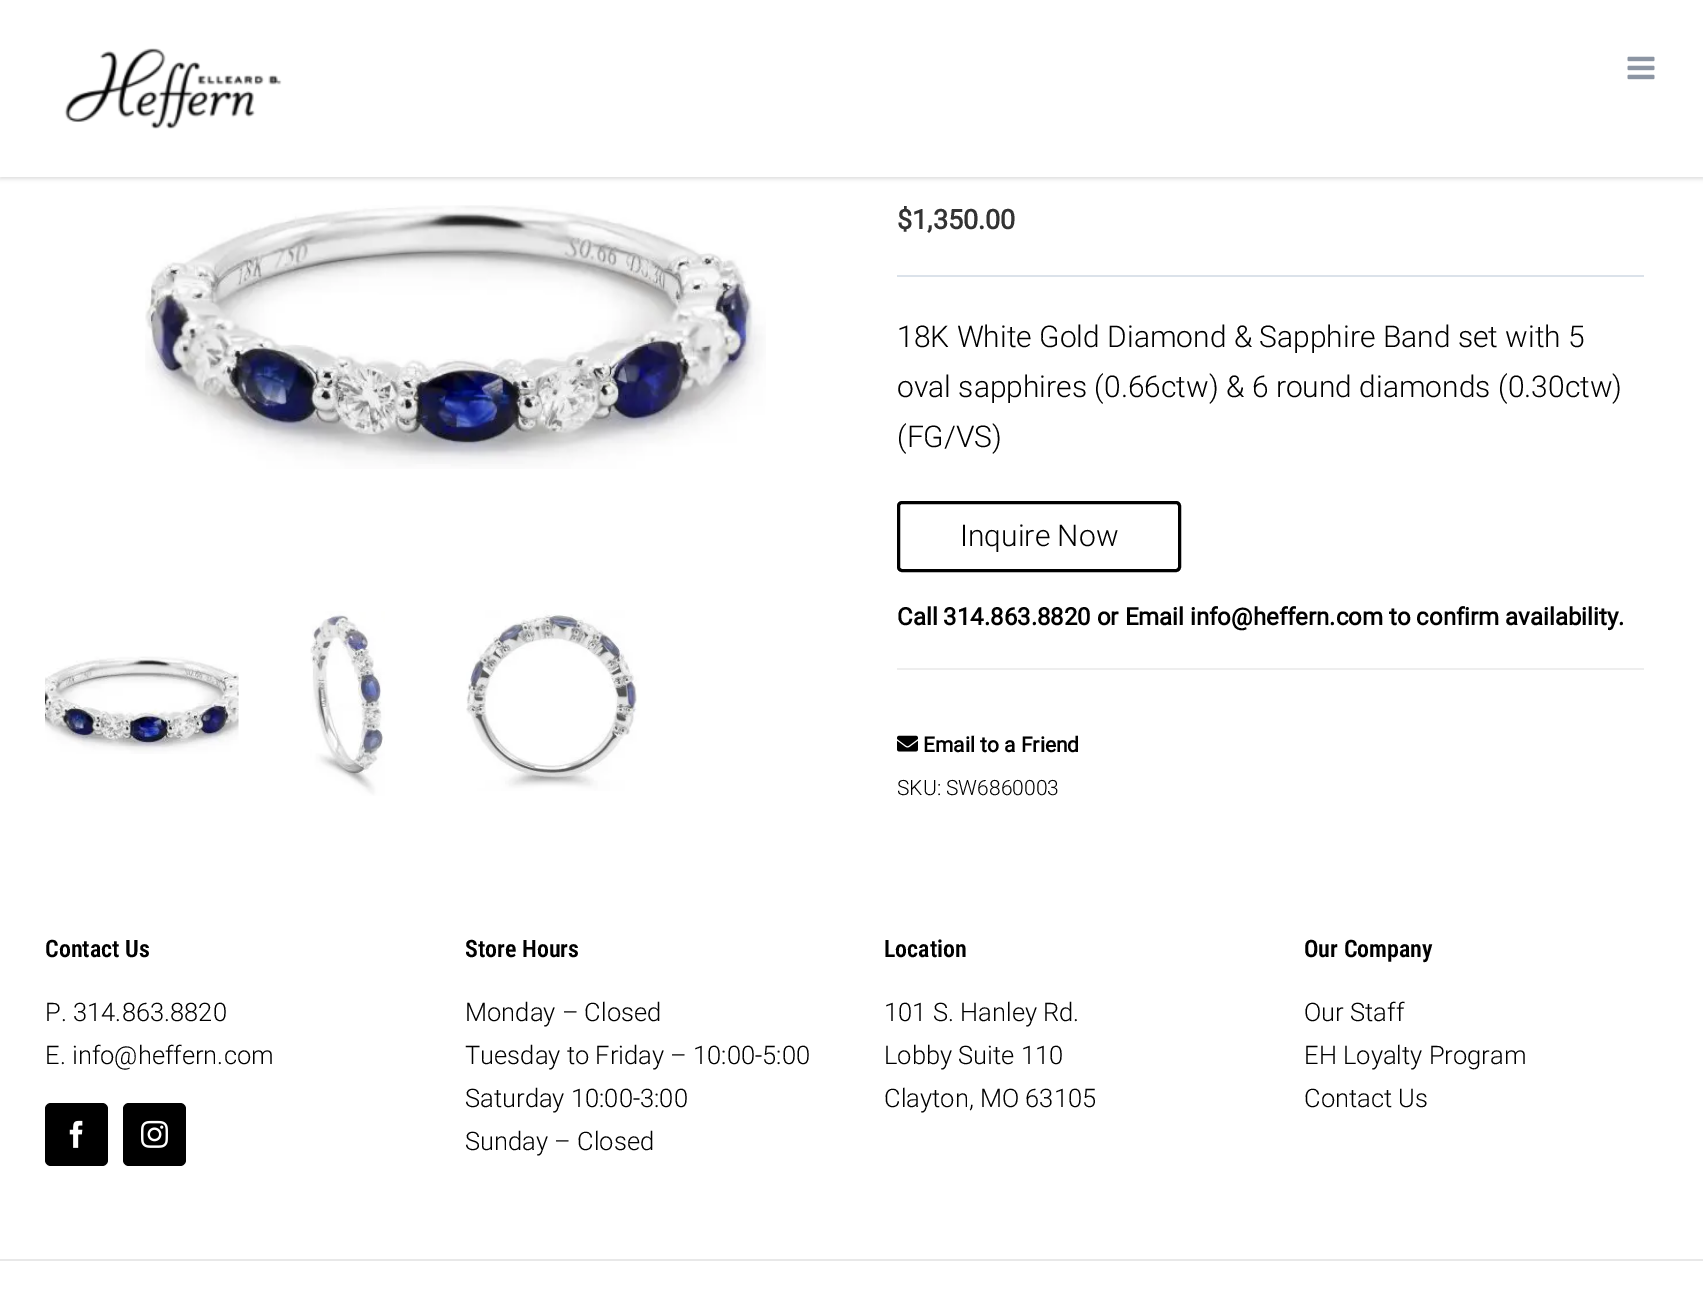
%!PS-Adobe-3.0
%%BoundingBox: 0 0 1703 1304
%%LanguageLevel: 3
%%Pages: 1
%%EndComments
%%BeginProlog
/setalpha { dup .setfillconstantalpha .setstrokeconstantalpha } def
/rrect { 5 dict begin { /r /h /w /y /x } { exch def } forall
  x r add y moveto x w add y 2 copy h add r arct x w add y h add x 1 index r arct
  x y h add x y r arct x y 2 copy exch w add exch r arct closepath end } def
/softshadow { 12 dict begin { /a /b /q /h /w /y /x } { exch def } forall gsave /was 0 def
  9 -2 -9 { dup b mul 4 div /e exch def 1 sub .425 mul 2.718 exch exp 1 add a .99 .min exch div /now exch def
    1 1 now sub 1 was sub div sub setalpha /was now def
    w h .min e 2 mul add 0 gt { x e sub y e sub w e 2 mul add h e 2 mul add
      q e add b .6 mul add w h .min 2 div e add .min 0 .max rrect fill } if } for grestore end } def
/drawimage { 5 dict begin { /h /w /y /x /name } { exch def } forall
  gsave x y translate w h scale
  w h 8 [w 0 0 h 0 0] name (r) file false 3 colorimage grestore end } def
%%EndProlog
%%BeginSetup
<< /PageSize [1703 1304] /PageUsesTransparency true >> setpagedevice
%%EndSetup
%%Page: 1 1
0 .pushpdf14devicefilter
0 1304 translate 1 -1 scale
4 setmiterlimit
1 setgray
0 0 1703 1304 rectfill
0 setgray
0 2 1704 177 0 2 0.12 softshadow
1 setgray
0 0 1703 177 rectfill
(images/1.raw) 64 48 218 81 drawimage
(images/2.raw) 1627 56 28 24 drawimage
(images/3.raw) 145 205 621 264 drawimage
(images/4.raw) 45 656 194 98 drawimage
(images/5.raw) 310 611 75 185 drawimage
(images/6.raw) 466 610 174 181 drawimage
0.859 0.886 0.918 setrgbcolor
897 275 747 2 rectfill
0 setgray
3 setlinewidth
898.5 502.5 281 68 3.5 rrect stroke
0.933 setgray
897 668 747 2 rectfill
(images/7.raw) 897 735 21 17 drawimage
0 setgray
45 1103 63 63 6 rrect fill
(images/8.raw) 69 1120 14 28 drawimage
123 1103 63 63 6 rrect fill
(images/9.raw) 141 1120 27 28 drawimage
0.91 setgray
0 1259 1703 2 rectfill
/Roboto-Bold [27 0 0 -27 0 0] selectfont
0.2 setgray
897 229 moveto ($1,350.00) show
/Roboto-Light [30 0 0 -30 0 0] selectfont
0 setgray
897 347 moveto (18K White Gold Diamond & Sapphire Band set with 5) show
897 397 moveto (oval sapphires \(0.66ctw\) & 6 round diamonds \(0.30ctw\)) show
897 447 moveto (\(FG/VS\)) show
960 546 moveto (Inquire Now) show
/Roboto-Bold [24 0 0 -24 0 0] selectfont
897 625 moveto (Call 314.863.8820 or Email info@heffern.com to confirm availability.) show
/Roboto-Bold [21 0 0 -21 0 0] selectfont
923 752 moveto (Email to a Friend) show
/Roboto-Light [21 0 0 -21 0 0] selectfont
897 795 moveto (SKU: SW6860003) show
/RobotoCondensed-SemiBold [24 0 0 -24 0 0] selectfont
45 957 moveto (Contact Us) show
/Roboto-Light [25.5 0 0 -25.5 0 0] selectfont
45 1021 moveto (P. 314.863.8820) show
45 1064 moveto (E. info@heffern.com) show
/RobotoCondensed-SemiBold [24 0 0 -24 0 0] selectfont
465 957 moveto (Store Hours) show
/Roboto-Light [25.5 0 0 -25.5 0 0] selectfont
465 1021 moveto (Monday – Closed) show
465 1064 moveto (Tuesday to Friday – 10:00-5:00) show
465 1107 moveto (Saturday 10:00-3:00) show
465 1150 moveto (Sunday – Closed) show
/RobotoCondensed-SemiBold [24 0 0 -24 0 0] selectfont
884 957 moveto (Location) show
/Roboto-Light [25.5 0 0 -25.5 0 0] selectfont
884 1021 moveto (101 S. Hanley Rd.) show
884 1064 moveto (Lobby Suite 110) show
884 1107 moveto (Clayton, MO 63105) show
/RobotoCondensed-SemiBold [24 0 0 -24 0 0] selectfont
1304 957 moveto (Our Company) show
/Roboto-Light [25.5 0 0 -25.5 0 0] selectfont
1304 1021 moveto (Our Staff) show
1304 1064 moveto (EH Loyalty Program) show
1304 1107 moveto (Contact Us) show
.poppdf14devicefilter showpage
%%EOF
